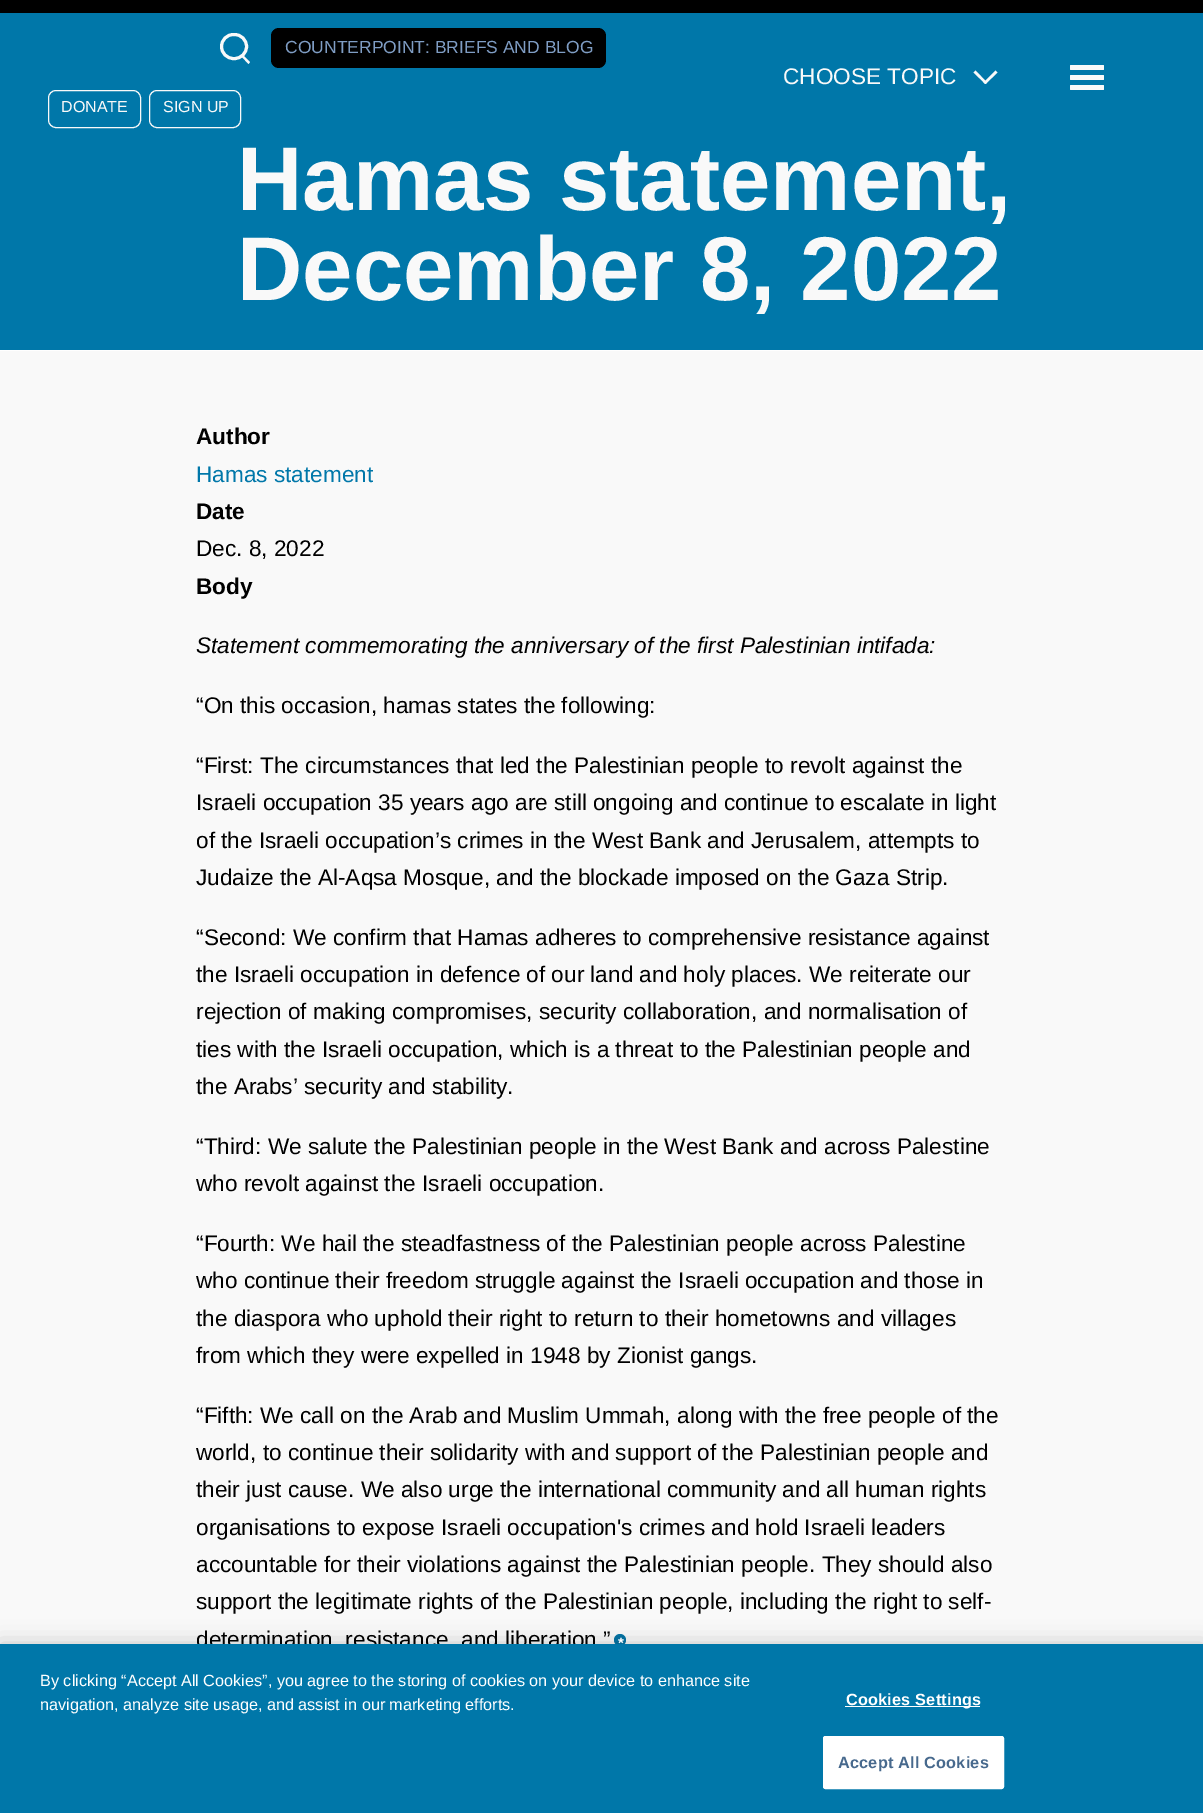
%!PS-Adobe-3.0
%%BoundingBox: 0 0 1203 1813
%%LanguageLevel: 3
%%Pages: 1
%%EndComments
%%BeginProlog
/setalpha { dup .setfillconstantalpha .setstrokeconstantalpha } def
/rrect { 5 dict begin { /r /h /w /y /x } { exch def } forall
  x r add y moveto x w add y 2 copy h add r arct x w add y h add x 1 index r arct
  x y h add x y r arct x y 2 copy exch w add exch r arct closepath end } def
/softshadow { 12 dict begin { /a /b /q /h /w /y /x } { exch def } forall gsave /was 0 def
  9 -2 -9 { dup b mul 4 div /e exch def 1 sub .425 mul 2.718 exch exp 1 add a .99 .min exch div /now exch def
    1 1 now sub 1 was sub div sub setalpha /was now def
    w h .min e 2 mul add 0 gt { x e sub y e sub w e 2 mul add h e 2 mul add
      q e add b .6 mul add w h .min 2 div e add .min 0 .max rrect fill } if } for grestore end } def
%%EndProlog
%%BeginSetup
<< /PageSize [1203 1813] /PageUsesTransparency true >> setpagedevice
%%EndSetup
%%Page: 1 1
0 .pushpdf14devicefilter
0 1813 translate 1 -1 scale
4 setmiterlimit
0.976 setgray
0 0 1203 1813 rectfill
0 0.467 0.663 setrgbcolor
0 13 1203 337 rectfill
0 setgray
0 0 1203 13 rectfill
1 setgray
0 350 1203 1 rectfill
0.976 setgray
3 setlinewidth
221.5 34.5 25 24 12 rrect stroke
newpath 241.5 56.5 moveto 243 55 lineto 250 62 lineto 248.5 64 lineto closepath fill
0 setgray
271 28 335 40 8 rrect fill
0.976 setgray
1 setlinewidth
48.5 90.5 92 37 7.5 rrect stroke
149.5 90.5 91 37 7.5 rrect stroke
newpath 995.5 70.5 moveto 997.5 72.5 lineto 985.5 84 lineto 983.5 82.5 lineto closepath fill
newpath 973.5 72.5 moveto 975.5 70.5 lineto 987 82.5 lineto 985.5 84 lineto closepath fill
1070 75 34 5 1 rrect fill
1070 65 34 5 1 rrect fill
1070 85 34 5 1 rrect fill
0.016 0.455 0.643 setrgbcolor
newpath 620 1640 6 0 360 arc closepath fill
0 setgray
0 1644 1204 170 0 11 0.2 softshadow
/LiberationSans-Regular [17.5 0 0 -17.5 0 0] selectfont
0.498 0.616 0.769 setrgbcolor
285 53 moveto (COUNTERPOINT: BRIEFS AND BLOG) show
/LiberationSans-Regular [16 0 0 -16 0 0] selectfont
0.976 setgray
61 112 moveto (DONATE) show
163 112 moveto (SIGN UP) show
/LiberationSans-Regular [22.6 0 0 -22.6 0 0] selectfont
783 84 moveto (CHOOSE TOPIC) show
/LiberationSans-Bold [90.5 0 0 -90.5 0 0] selectfont
237 210 moveto (Hamas statement,) show
237 300 moveto (December 8, 2022) show
/LiberationSans-Bold [22.6 0 0 -22.6 0 0] selectfont
0 setgray
196 444 moveto (Author) show
/LiberationSans-Regular [22.6 0 0 -22.6 0 0] selectfont
0 0.467 0.663 setrgbcolor
196 482 moveto (Hamas statement) show
/LiberationSans-Bold [22.6 0 0 -22.6 0 0] selectfont
0 setgray
196 519 moveto (Date) show
/LiberationSans-Regular [22.6 0 0 -22.6 0 0] selectfont
196 556 moveto (Dec. 8, 2022) show
/LiberationSans-Bold [22.6 0 0 -22.6 0 0] selectfont
196 594 moveto (Body) show
/LiberationSans-Italic [22.6 0 0 -22.6 0 0] selectfont
196 653 moveto (Statement commemorating the anniversary of the first Palestinian intifada:) show
/LiberationSans-Regular [22.6 0 0 -22.6 0 0] selectfont
196 713 moveto (“On this occasion, hamas states the following:) show
196 773 moveto (“First: The circumstances that led the Palestinian people to revolt against the) show
196 810 moveto (Israeli occupation 35 years ago are still ongoing and continue to escalate in light) show
196 848 moveto (of the Israeli occupation’s crimes in the West Bank and Jerusalem, attempts to) show
196 885 moveto (Judaize the Al-Aqsa Mosque, and the blockade imposed on the Gaza Strip.) show
196 945 moveto (“Second: We confirm that Hamas adheres to comprehensive resistance against) show
196 982 moveto (the Israeli occupation in defence of our land and holy places. We reiterate our) show
196 1019 moveto (rejection of making compromises, security collaboration, and normalisation of) show
196 1057 moveto (ties with the Israeli occupation, which is a threat to the Palestinian people and) show
196 1094 moveto (the Arabs’ security and stability.) show
196 1154 moveto (“Third: We salute the Palestinian people in the West Bank and across Palestine) show
196 1191 moveto (who revolt against the Israeli occupation.) show
196 1251 moveto (“Fourth: We hail the steadfastness of the Palestinian people across Palestine) show
196 1288 moveto (who continue their freedom struggle against the Israeli occupation and those in) show
196 1326 moveto (the diaspora who uphold their right to return to their hometowns and villages) show
196 1363 moveto (from which they were expelled in 1948 by Zionist gangs.) show
196 1423 moveto (“Fifth: We call on the Arab and Muslim Ummah, along with the free people of the) show
196 1460 moveto (world, to continue their solidarity with and support of the Palestinian people and) show
196 1497 moveto (their just cause. We also urge the international community and all human rights) show
196 1535 moveto (organisations to expose Israeli occupation's crimes and hold Israeli leaders) show
196 1572 moveto (accountable for their violations against the Palestinian people. They should also) show
196 1609 moveto (support the legitimate rights of the Palestinian people, including the right to self-) show
196 1647 moveto (determination, resistance, and liberation.”) show
/LiberationSans-Bold [15 0 0 -15 0 0] selectfont
1 setgray
618 1648 moveto (*) show
0 0.467 0.663 setrgbcolor
0 1644 1203 169 rectfill
/LiberationSans-Regular [16.25 0 0 -16.25 0 0] selectfont
1 setgray
40 1686 moveto (By clicking “Accept All Cookies”, you agree to the storing of cookies on your device to enhance site) show
40 1710 moveto (navigation, analyze site usage, and assist in our marketing efforts.) show
845 1706 135 1 rectfill
/LiberationSans-Bold [16.25 0 0 -16.25 0 0] selectfont
846 1705 moveto 0.2 0 (Cookies Settings) ashow
823.5 1736.5 180 52 2 rrect gsave fill grestore
stroke
0.278 0.412 0.553 setrgbcolor
838 1768 moveto 0.2 0 (Accept All Cookies) ashow
.poppdf14devicefilter showpage
%%EOF
